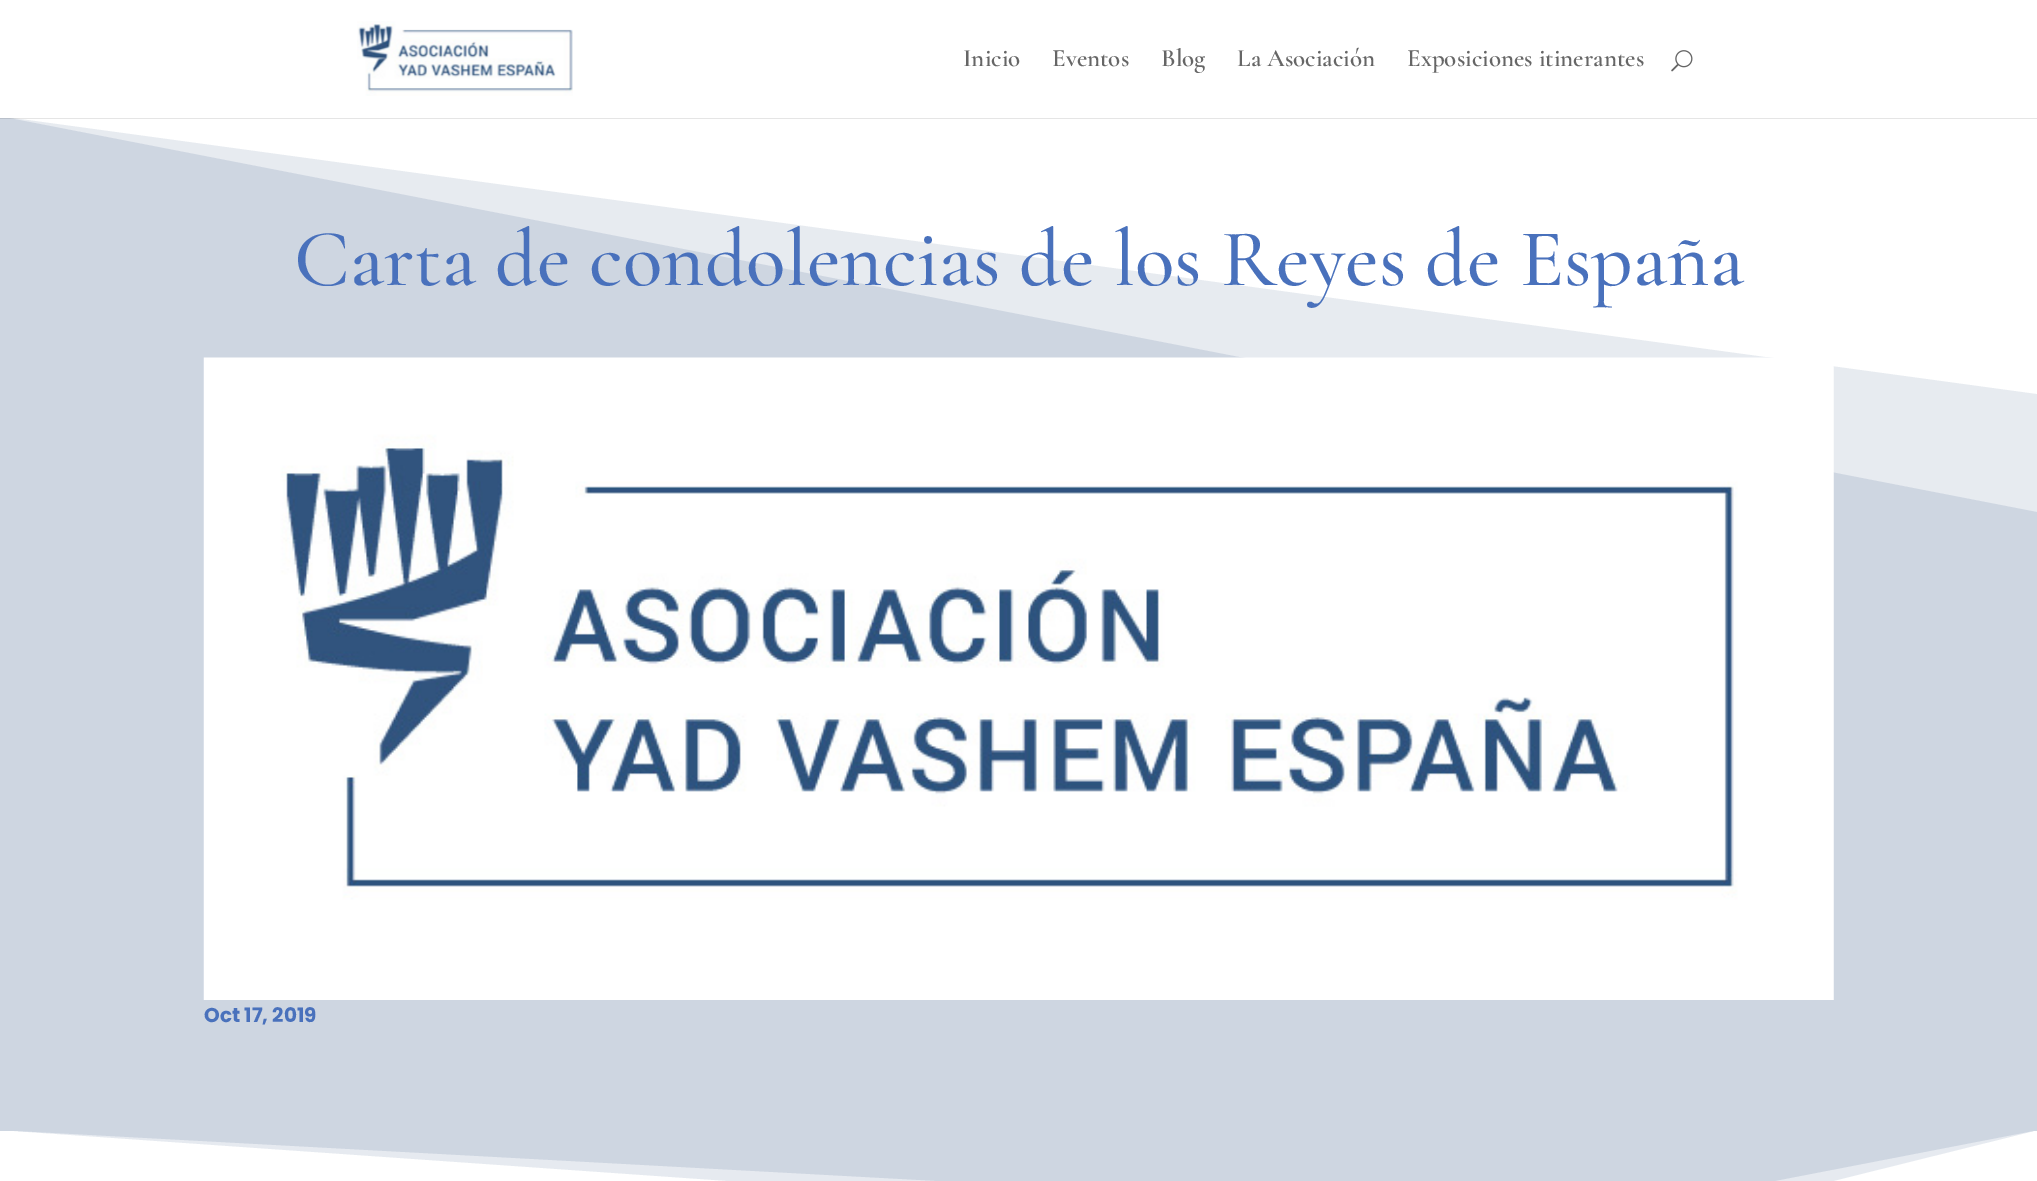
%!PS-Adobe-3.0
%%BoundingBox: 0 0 2037 1181
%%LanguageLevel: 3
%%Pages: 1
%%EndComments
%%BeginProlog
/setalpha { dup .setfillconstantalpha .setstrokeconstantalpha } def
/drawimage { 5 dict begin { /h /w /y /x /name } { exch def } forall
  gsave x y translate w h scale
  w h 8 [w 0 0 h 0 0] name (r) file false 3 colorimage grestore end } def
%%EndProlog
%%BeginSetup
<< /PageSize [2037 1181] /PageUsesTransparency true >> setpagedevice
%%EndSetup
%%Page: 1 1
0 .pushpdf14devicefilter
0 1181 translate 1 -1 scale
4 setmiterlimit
1 setgray
0 0 2037 1181 rectfill
0.808 0.839 0.882 setrgbcolor
0 118 2037 1013 rectfill
0.5 setalpha
1 setgray
newpath 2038 512 moveto 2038 116 lineto 0 116 lineto closepath fill
1 setalpha
newpath 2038 394 moveto 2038 116 lineto 0 116 lineto closepath fill
0.1 setalpha
0 setgray
newpath 0 118 moveto 0 119 lineto 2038 119 lineto 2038 1 lineto 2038 118 lineto closepath fill
1 setalpha
(images/1.raw) 357 21 216 75 drawimage
(images/2.raw) 1671 50 22 22 drawimage
(images/3.raw) 203 357 1631 643 drawimage
0.5 setalpha
0.808 0.839 0.882 setrgbcolor
newpath 1558 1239 moveto 0 1130 lineto 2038 1130 lineto 1620 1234 lineto 1601 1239 1579 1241 1558 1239 curveto closepath fill
1 setalpha
newpath 1565 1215 moveto 0 1130 lineto 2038 1130 lineto 1614 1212 lineto 1598 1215 1582 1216 1565 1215 curveto closepath fill
/CormorantGaramond-SemiBold [25 0 0 -25 0 0] selectfont
0.4 setgray
963 66 moveto (Inicio) show
1052 66 moveto (Eventos) show
1161 66 moveto (Blog) show
1237 66 moveto (La Asociación) show
1407 66 moveto (Exposiciones itinerantes) show
/CormorantGaramond-Light [81.5 0 0 -81.5 0 0] selectfont
0.286 0.443 0.737 setrgbcolor
294 285 moveto (Carta de condolencias de los Reyes de España) show
/Poppins-Bold [20 0 0 -20 0 0] selectfont
204 1022 moveto (Oct 17, 2019) show
.poppdf14devicefilter showpage
%%EOF
